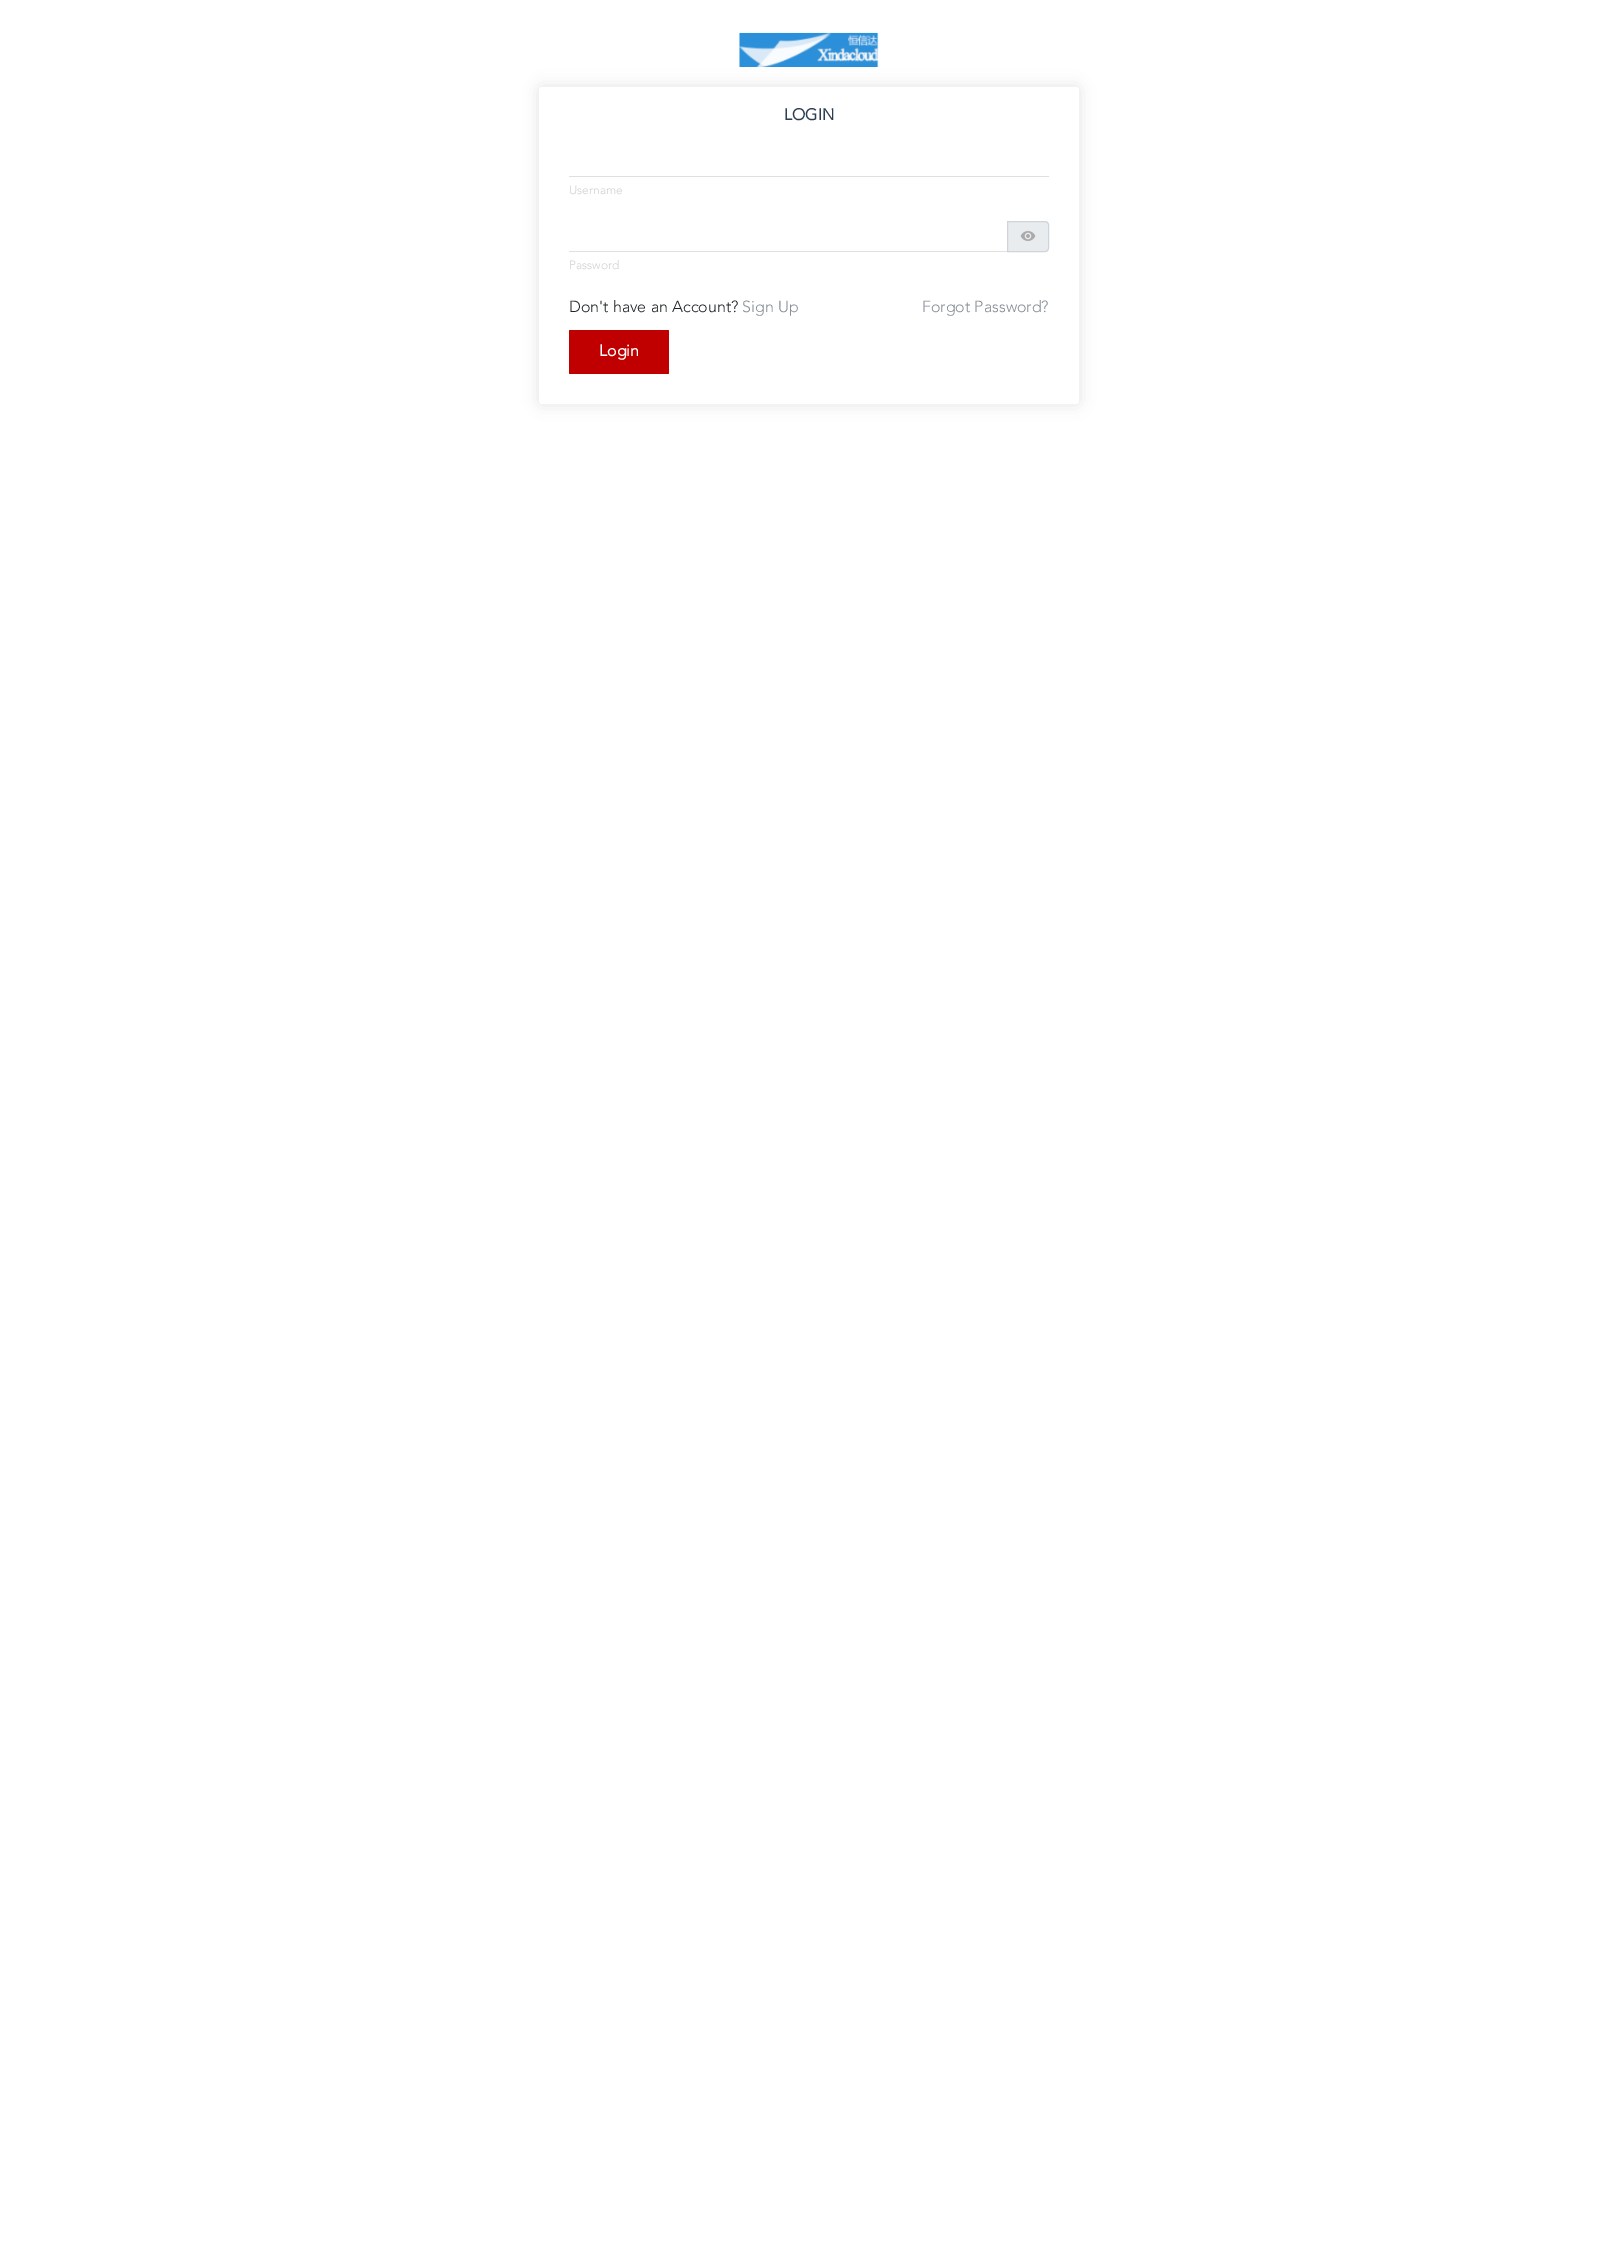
%!PS-Adobe-3.0
%%BoundingBox: 0 0 1618 2245
%%LanguageLevel: 3
%%Pages: 1
%%EndComments
%%BeginProlog
/setalpha { dup .setfillconstantalpha .setstrokeconstantalpha } def
/rrect { 5 dict begin { /r /h /w /y /x } { exch def } forall
  x r add y moveto x w add y 2 copy h add r arct x w add y h add x 1 index r arct
  x y h add x y r arct x y 2 copy exch w add exch r arct closepath end } def
/softshadow { 12 dict begin { /a /b /q /h /w /y /x } { exch def } forall gsave /was 0 def
  9 -2 -9 { dup b mul 4 div /e exch def 1 sub .425 mul 2.718 exch exp 1 add a .99 .min exch div /now exch def
    1 1 now sub 1 was sub div sub setalpha /was now def
    w h .min e 2 mul add 0 gt { x e sub y e sub w e 2 mul add h e 2 mul add
      q e add b .6 mul add w h .min 2 div e add .min 0 .max rrect fill } if } for grestore end } def
/drawimage { 5 dict begin { /h /w /y /x /name } { exch def } forall
  gsave x y translate w h scale
  w h 8 [w 0 0 h 0 0] name (r) file false 3 colorimage grestore end } def
%%EndProlog
%%BeginSetup
<< /PageSize [1618 2245] /PageUsesTransparency true >> setpagedevice
%%EndSetup
%%Page: 1 1
0 .pushpdf14devicefilter
0 2245 translate 1 -1 scale
4 setmiterlimit
1 setgray
0 0 1618 2245 rectfill
(images/1.raw) 739 32 140 35 drawimage
0 setgray
538 86 542 319 4 7.5 0.1 softshadow
1 setgray
539 87 540 317 3 rrect fill
0.878 setgray
569 176 480 1 rectfill
569 251 438 1 rectfill
0.914 0.925 0.937 setrgbcolor
newpath 1007.5 221.5 moveto 1045 221.5 lineto 1047 221.5 1048.5 223 1048.5 225 curveto 1048.5 248 lineto 1048.5 250 1047 251.5 1045 251.5 curveto 1007.5 251.5 lineto closepath gsave fill grestore
0.808 0.831 0.855 setrgbcolor
stroke
(images/2.raw) 1020 231 16 10 drawimage
0.753 0 0 setrgbcolor
569 330 100 44 1 rrect fill
/Avenir-Bold [16 0 0 -16 0 0] selectfont
0.173 0.243 0.314 setrgbcolor
784 120 moveto (LOGIN) show
/Avenir-Light [12 0 0 -12 0 0] selectfont
0.82 setgray
569 194 moveto (Username) show
569 269 moveto (Password) show
/Avenir-Light [16 0 0 -16 0 0] selectfont
0.129 0.145 0.161 setrgbcolor
569 312 moveto (Don't have an Account?) show
0.525 0.557 0.588 setrgbcolor
742 312 moveto (Sign Up) show
922 312 moveto (Forgot Password?) show
/Avenir-Bold [16 0 0 -16 0 0] selectfont
1 setgray
599 356 moveto (Login) show
.poppdf14devicefilter showpage
%%EOF
